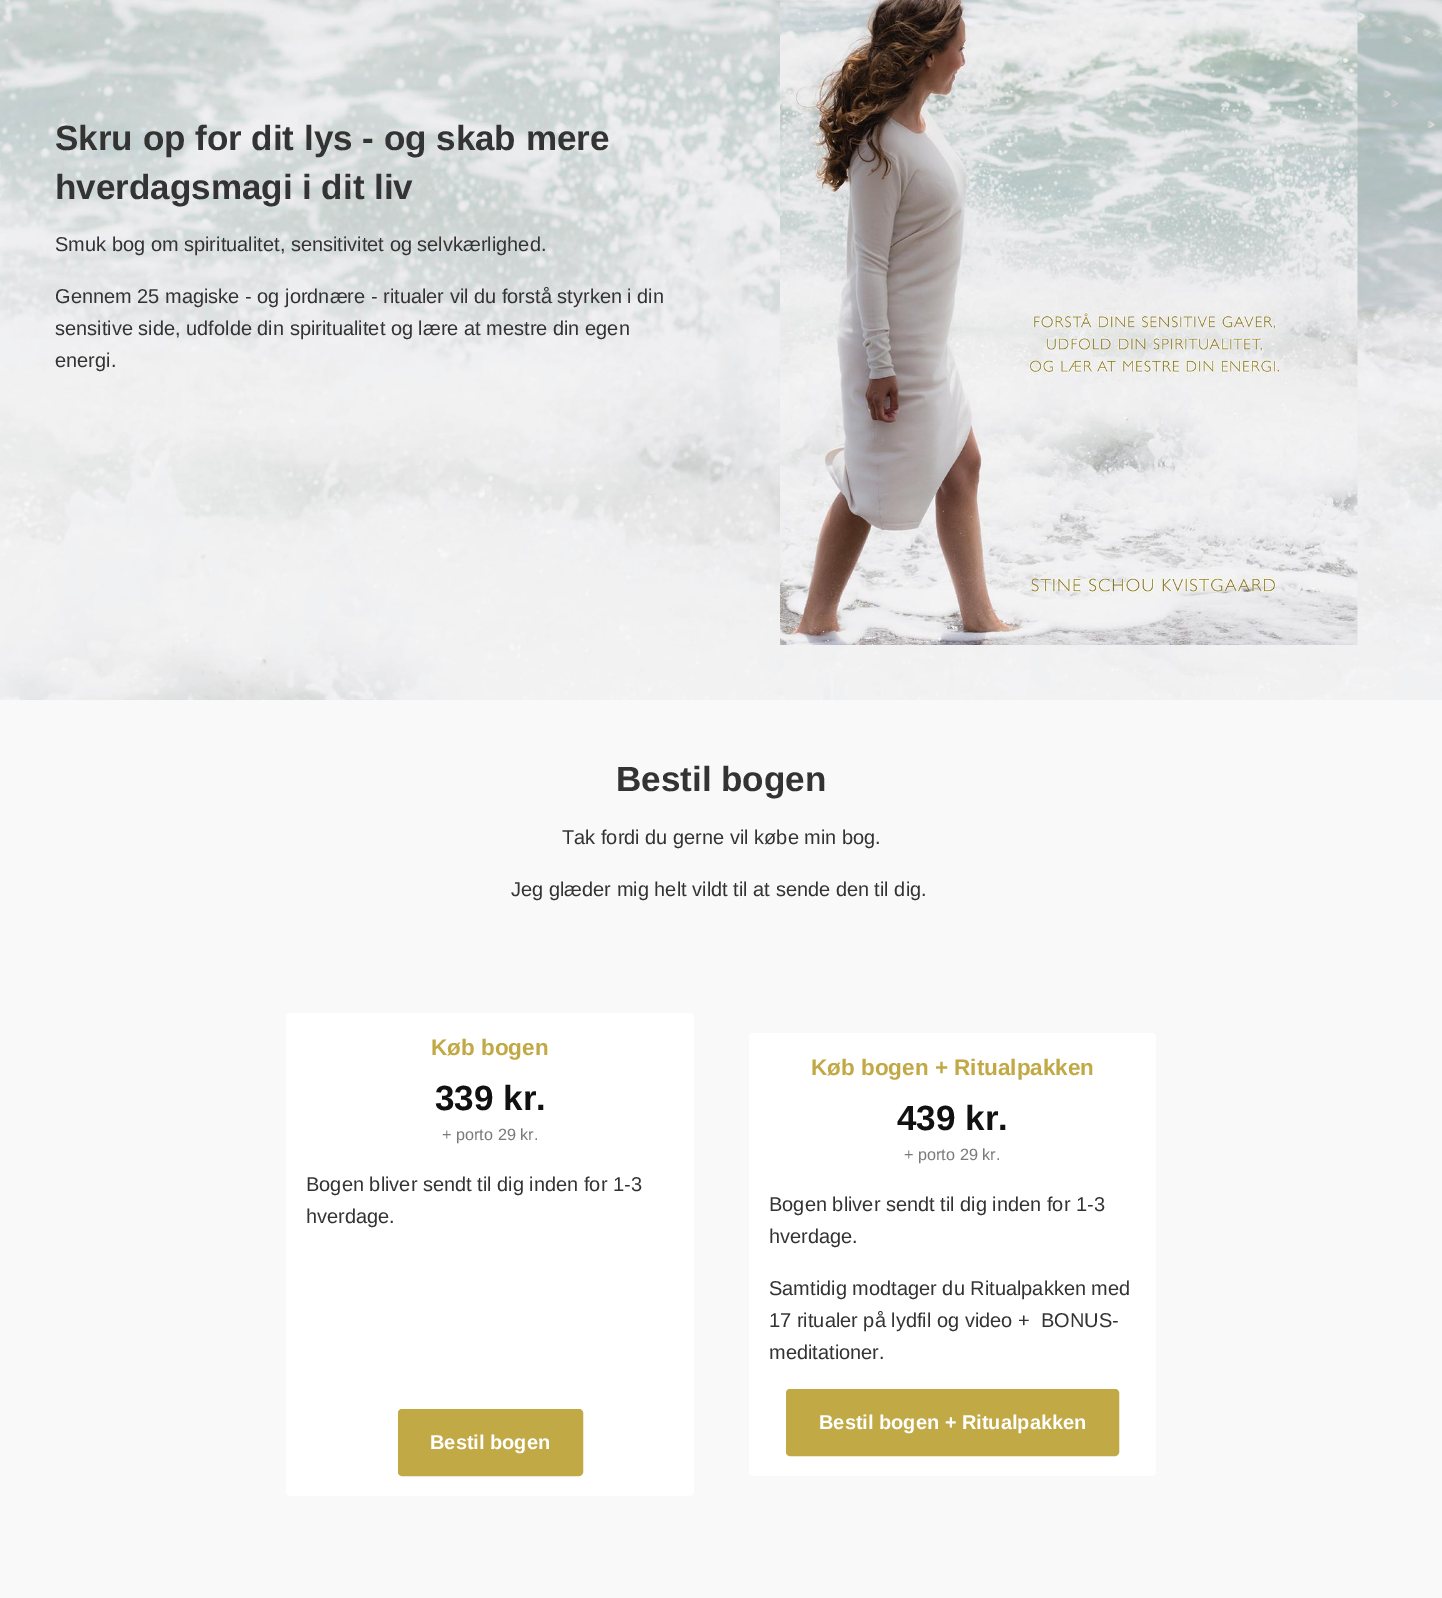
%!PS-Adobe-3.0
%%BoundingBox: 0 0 1442 1598
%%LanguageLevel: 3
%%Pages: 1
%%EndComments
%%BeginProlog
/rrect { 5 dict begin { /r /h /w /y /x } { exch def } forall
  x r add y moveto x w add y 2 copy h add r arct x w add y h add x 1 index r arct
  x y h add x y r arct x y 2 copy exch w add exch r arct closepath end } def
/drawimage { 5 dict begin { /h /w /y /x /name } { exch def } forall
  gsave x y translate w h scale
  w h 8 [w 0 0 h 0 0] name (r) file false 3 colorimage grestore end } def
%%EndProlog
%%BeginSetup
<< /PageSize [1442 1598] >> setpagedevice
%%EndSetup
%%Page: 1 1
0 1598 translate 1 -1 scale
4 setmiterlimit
1 setgray
0 0 1442 1598 rectfill
(images/1.raw) 0 0 1442 700 drawimage
(images/2.raw) 780 0 578 645 drawimage
0.976 setgray
0 700 1442 898 rectfill
1 setgray
286 1013 408 483 4 rrect fill
0.757 0.663 0.275 setrgbcolor
399.5 1410.5 182 64 2.5 rrect gsave fill grestore
3 setlinewidth
stroke
1 setgray
749 1033 407 443 4 rrect fill
0.757 0.663 0.275 setrgbcolor
787.5 1390.5 330 64 2.5 rrect gsave fill grestore
stroke
/LiberationSans-Bold [35 0 0 -35 0 0] selectfont
0.2 setgray
55 150 moveto (Skru op for dit lys - og skab mere) show
55 199 moveto (hverdagsmagi i dit liv) show
/LiberationSans-Regular [20 0 0 -20 0 0] selectfont
55 251 moveto (Smuk bog om spiritualitet, sensitivitet og selvkærlighed.) show
55 303 moveto (Gennem 25 magiske - og jordnære - ritualer vil du forstå styrken i din) show
55 335 moveto (sensitive side, udfolde din spiritualitet og lære at mestre din egen) show
55 367 moveto (energi.) show
/LiberationSans-Bold [35 0 0 -35 0 0] selectfont
616 791 moveto (Bestil bogen) show
/LiberationSans-Regular [20 0 0 -20 0 0] selectfont
562 844 moveto (Tak fordi du gerne vil købe min bog.) show
511 896 moveto (Jeg glæder mig helt vildt til at sende den til dig.) show
/LiberationSans-Bold [22.5 0 0 -22.5 0 0] selectfont
0.757 0.663 0.275 setrgbcolor
431 1055 moveto (Køb bogen) show
/LiberationSans-Bold [35 0 0 -35 0 0] selectfont
0.067 setgray
435 1110 moveto (339 kr.) show
/LiberationSans-Regular [16.25 0 0 -16.25 0 0] selectfont
0.478 setgray
442 1140 moveto (+ porto 29 kr.) show
/LiberationSans-Regular [20 0 0 -20 0 0] selectfont
0.2 setgray
306 1191 moveto (Bogen bliver sendt til dig inden for 1-3) show
306 1223 moveto (hverdage.) show
/LiberationSans-Bold [20 0 0 -20 0 0] selectfont
1 setgray
430 1449 moveto (Bestil bogen) show
/LiberationSans-Bold [22.5 0 0 -22.5 0 0] selectfont
0.757 0.663 0.275 setrgbcolor
811 1075 moveto (Køb bogen + Ritualpakken) show
/LiberationSans-Bold [35 0 0 -35 0 0] selectfont
0.067 setgray
897 1130 moveto (439 kr.) show
/LiberationSans-Regular [16.25 0 0 -16.25 0 0] selectfont
0.478 setgray
904 1160 moveto (+ porto 29 kr.) show
/LiberationSans-Regular [20 0 0 -20 0 0] selectfont
0.2 setgray
769 1211 moveto (Bogen bliver sendt til dig inden for 1-3) show
769 1243 moveto (hverdage.) show
769 1295 moveto (Samtidig modtager du Ritualpakken med) show
769 1327 moveto (17 ritualer på lydfil og video +  BONUS-) show
769 1359 moveto (meditationer.) show
/LiberationSans-Bold [20 0 0 -20 0 0] selectfont
1 setgray
819 1429 moveto (Bestil bogen + Ritualpakken) show
showpage
%%EOF
